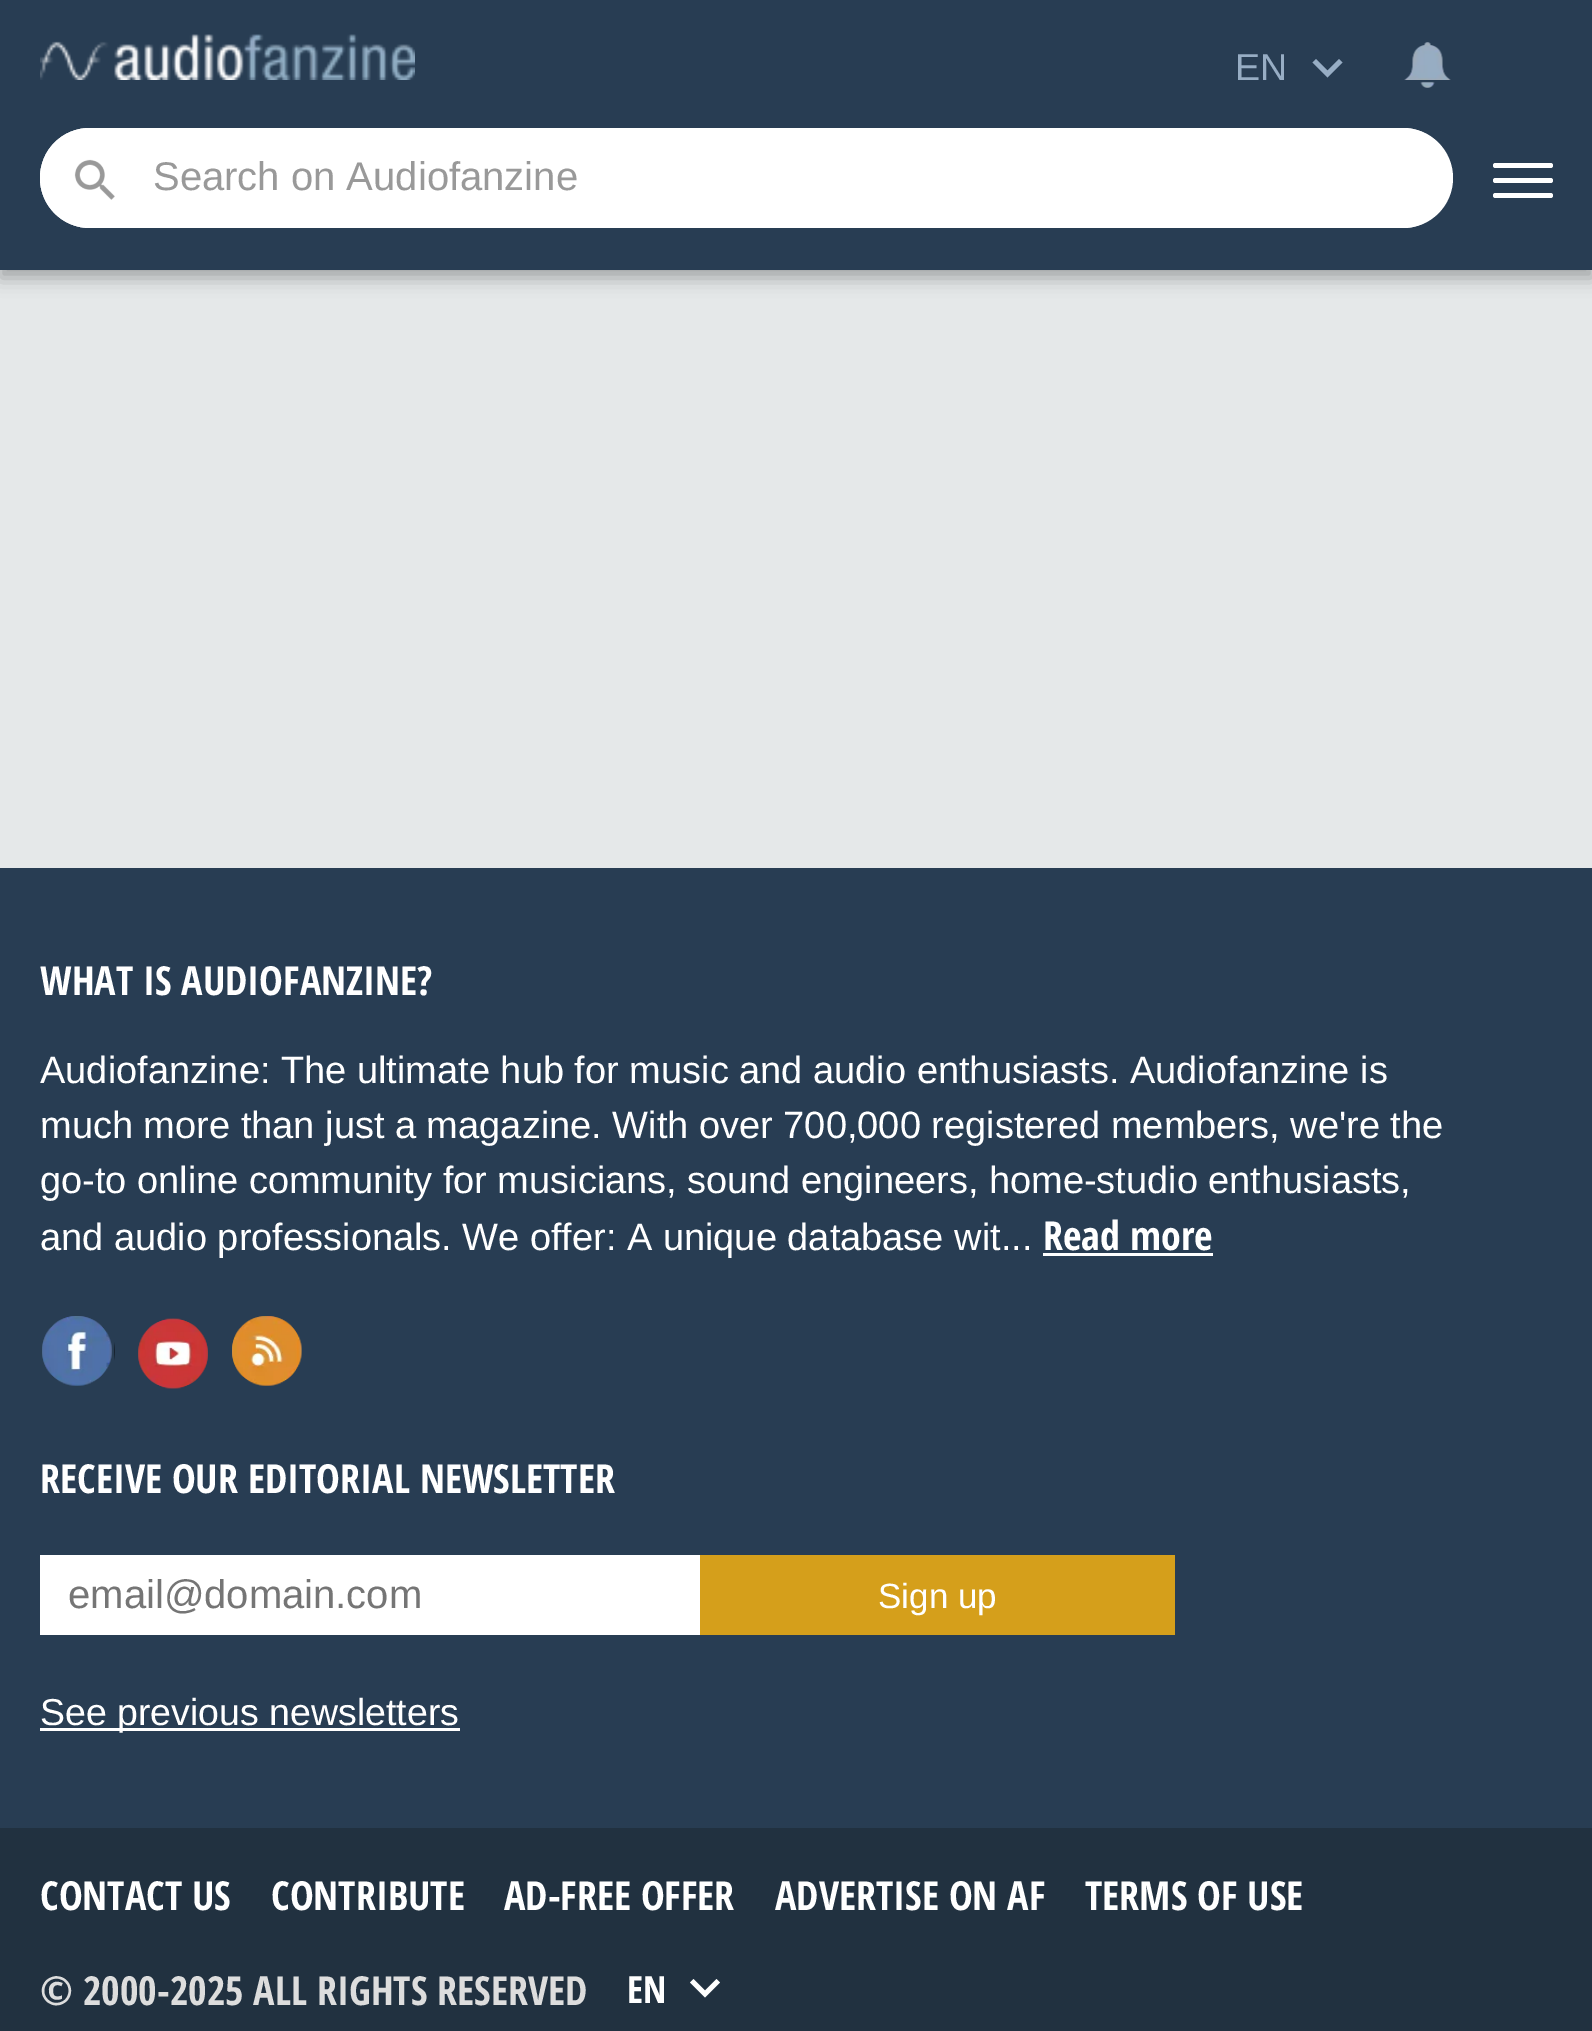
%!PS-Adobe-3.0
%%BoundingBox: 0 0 1592 2031
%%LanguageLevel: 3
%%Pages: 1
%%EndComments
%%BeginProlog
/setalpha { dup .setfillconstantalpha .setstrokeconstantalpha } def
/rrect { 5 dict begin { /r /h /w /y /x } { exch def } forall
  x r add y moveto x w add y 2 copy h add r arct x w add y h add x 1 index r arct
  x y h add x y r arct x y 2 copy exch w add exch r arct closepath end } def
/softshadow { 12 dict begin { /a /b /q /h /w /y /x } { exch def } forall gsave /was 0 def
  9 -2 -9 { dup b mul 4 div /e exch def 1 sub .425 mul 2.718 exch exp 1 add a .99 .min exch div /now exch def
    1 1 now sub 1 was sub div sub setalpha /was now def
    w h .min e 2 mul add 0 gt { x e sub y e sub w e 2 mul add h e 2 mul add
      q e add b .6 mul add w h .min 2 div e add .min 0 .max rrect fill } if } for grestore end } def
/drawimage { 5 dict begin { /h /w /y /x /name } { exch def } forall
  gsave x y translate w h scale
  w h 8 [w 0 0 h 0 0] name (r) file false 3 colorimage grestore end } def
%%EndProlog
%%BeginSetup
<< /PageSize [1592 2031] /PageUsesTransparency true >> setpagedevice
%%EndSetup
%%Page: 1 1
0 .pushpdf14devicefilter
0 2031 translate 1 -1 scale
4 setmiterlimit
0.157 0.239 0.325 setrgbcolor
0 0 1592 2031 rectfill
0.898 0.91 0.914 setrgbcolor
0 270 1592 598 rectfill
0 setgray
0 8 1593 270 0 9 0.3 softshadow
0.157 0.239 0.325 setrgbcolor
0 0 1592 270 rectfill
(images/1.raw) 40 34 375 46 drawimage
(images/2.raw) 1404 42 47 46 drawimage
0.592 0.678 0.769 setrgbcolor
newpath 1339 59 moveto 1327.5 70.5 lineto 1316 59 lineto 1312.5 62.5 lineto 1327.5 77.5 lineto 1342.5 62.5 lineto closepath fill
1 setgray
40 128 1413 100 50 rrect fill
newpath 90 128 moveto 1402 128 lineto 1430 128 1452 150 1452 178 curveto 1452 205 1430 228 1402 228 curveto 90 228 lineto 62 228 40 205 40 178 curveto 40 150 62 128 90 128 curveto closepath 90 130 moveto 1402 130 lineto 1430 130 1452 151 1452 178 curveto 1452 204 1430 225 1402 225 curveto 90 225 lineto 64 225 42 204 42 178 curveto 42 151 64 130 90 130 curveto closepath eofill
(images/3.raw) 74 159 41 41 drawimage
1493 193 60 5 2.5 rrect fill
1493 163 60 5 2.5 rrect fill
1493 178 60 5 2.5 rrect fill
1043 1253 170 3 rectfill
(images/4.raw) 42 1316 73 70 drawimage
(images/5.raw) 138 1318 70 71 drawimage
(images/6.raw) 232 1316 70 70 drawimage
40 1555 660 80 rectfill
0.835 0.624 0.106 setrgbcolor
700 1555 475 80 rectfill
1 setgray
40 1728 420 3 rectfill
0.129 0.192 0.251 setrgbcolor
0 1828 1592 203 rectfill
1 setgray
newpath 693.5 1979 moveto 705 1990.5 lineto 716.5 1979 lineto 720 1982.5 lineto 705 1997.5 lineto 690 1982.5 lineto closepath fill
/LiberationSans-Regular [37.5 0 0 -37.5 0 0] selectfont
0.592 0.678 0.769 setrgbcolor
1235 80 moveto (EN) show
/LiberationSans-Regular [40 0 0 -40 0 0] selectfont
0.6 setgray
153 190 moveto (Search on Audiofanzine) show
/OpenSansCondensed-Bold [40 0 0 -40 0 0] selectfont
1 setgray
40 995 moveto (WHAT IS AUDIOFANZINE?) show
/LiberationSans-Regular [38 0 0 -38 0 0] selectfont
40 1083 moveto (Audiofanzine: The ultimate hub for music and audio enthusiasts. Audiofanzine is) show
40 1138 moveto (much more than just a magazine. With over 700,000 registered members, we're the) show
40 1193 moveto -0.25 0 32 (go-to online community for musicians, sound engineers, home-studio enthusiasts,) widthshow
40 1250 moveto (and audio professionals.) show
462 1250 moveto (We offer: A unique database wit...) show
/OpenSansCondensed-Bold [40 0 0 -40 0 0] selectfont
1043 1250 moveto (Read more) show
40 1493 moveto (RECEIVE OUR EDITORIAL NEWSLETTER) show
/LiberationSans-Regular [40 0 0 -40 0 0] selectfont
0.459 setgray
68 1608 moveto (email@domain.com) show
/LiberationSans-Regular [35 0 0 -35 0 0] selectfont
1 setgray
878 1608 moveto (Sign up) show
/LiberationSans-Regular [37.5 0 0 -37.5 0 0] selectfont
40 1725 moveto (See previous newsletters) show
/OpenSansCondensed-Bold [40 0 0 -40 0 0] selectfont
40 1910 moveto (CONTACT US) show
271 1910 moveto (CONTRIBUTE) show
504 1910 moveto (AD-FREE OFFER) show
775 1910 moveto (ADVERTISE ON AF) show
1085 1910 moveto (TERMS OF USE) show
0.867 setgray
40 2005 moveto (© 2000-2025 ALL RIGHTS RESERVED) show
/OpenSansCondensed-Bold [37.5 0 0 -37.5 0 0] selectfont
1 setgray
627 2003 moveto (EN) show
.poppdf14devicefilter showpage
%%EOF
